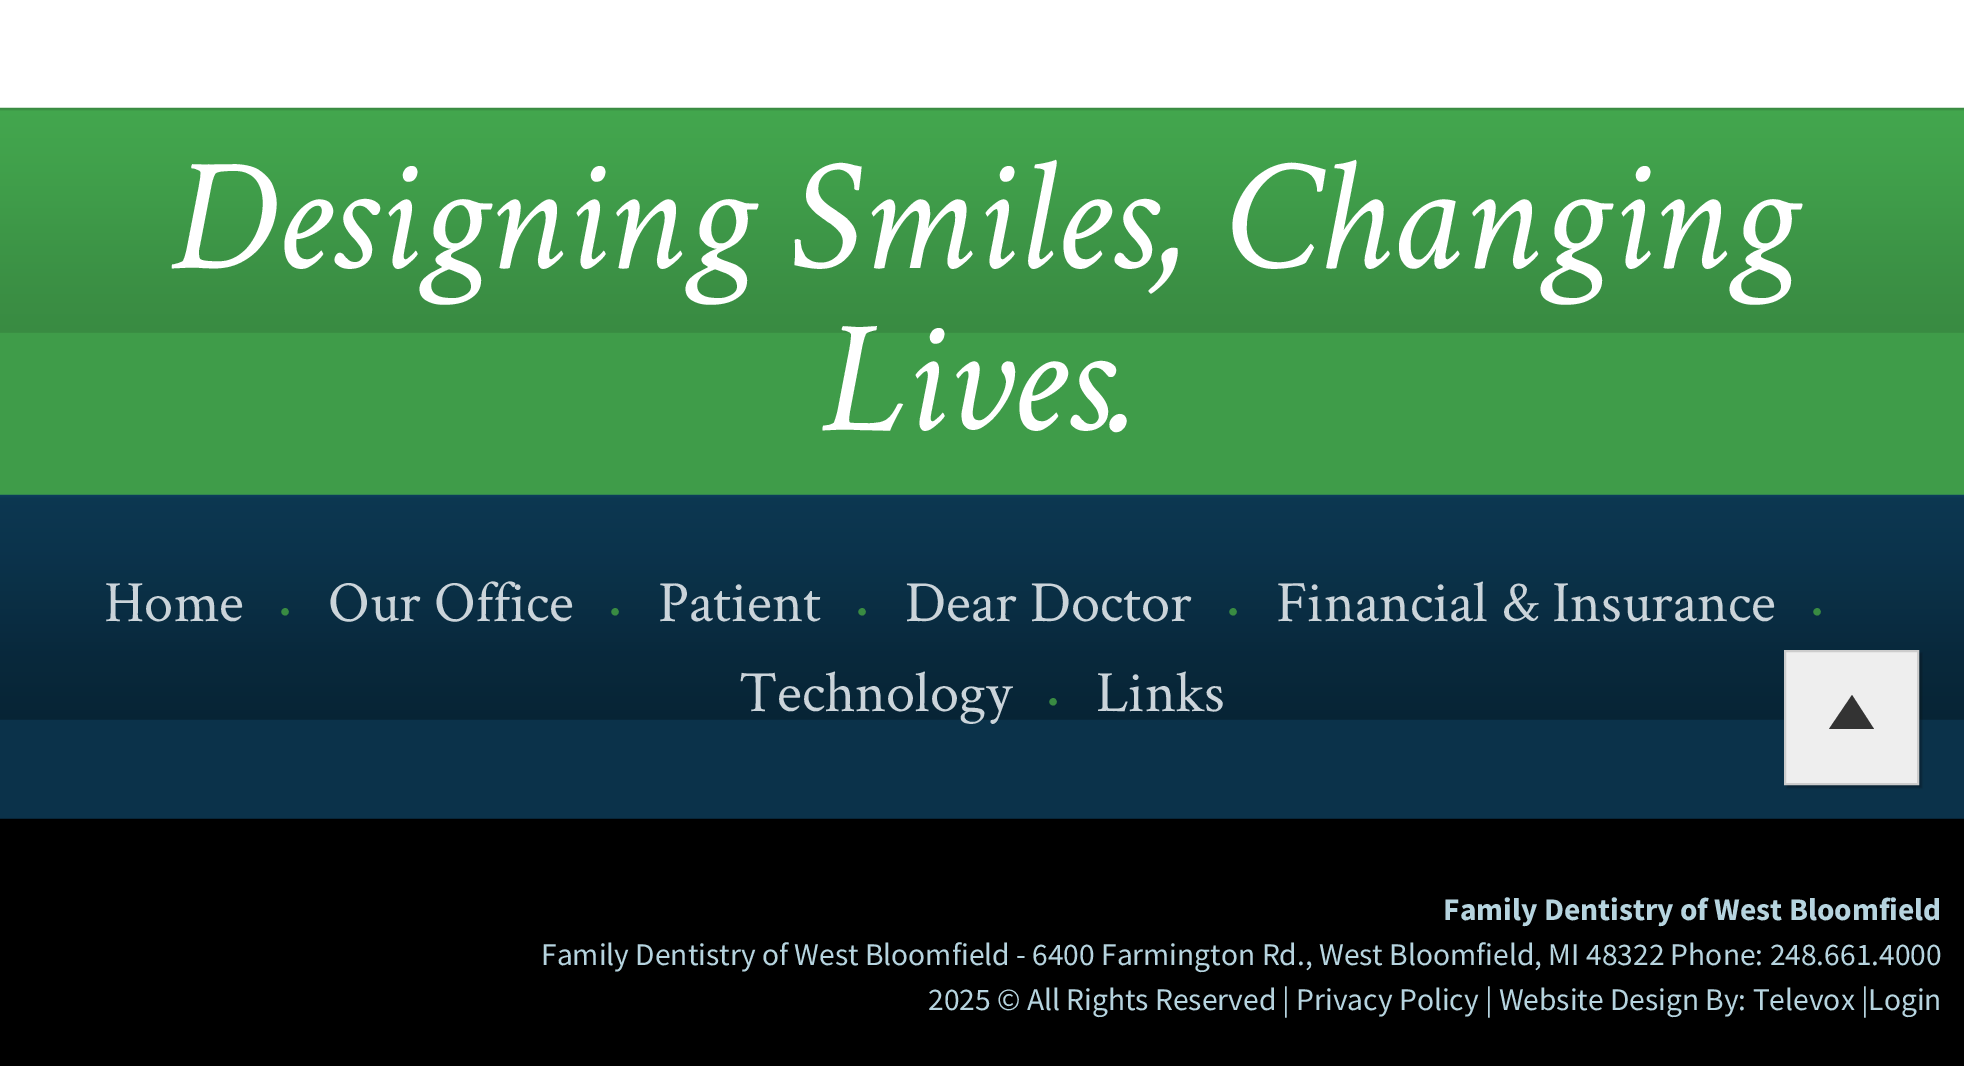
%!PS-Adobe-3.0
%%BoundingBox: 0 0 1964 1066
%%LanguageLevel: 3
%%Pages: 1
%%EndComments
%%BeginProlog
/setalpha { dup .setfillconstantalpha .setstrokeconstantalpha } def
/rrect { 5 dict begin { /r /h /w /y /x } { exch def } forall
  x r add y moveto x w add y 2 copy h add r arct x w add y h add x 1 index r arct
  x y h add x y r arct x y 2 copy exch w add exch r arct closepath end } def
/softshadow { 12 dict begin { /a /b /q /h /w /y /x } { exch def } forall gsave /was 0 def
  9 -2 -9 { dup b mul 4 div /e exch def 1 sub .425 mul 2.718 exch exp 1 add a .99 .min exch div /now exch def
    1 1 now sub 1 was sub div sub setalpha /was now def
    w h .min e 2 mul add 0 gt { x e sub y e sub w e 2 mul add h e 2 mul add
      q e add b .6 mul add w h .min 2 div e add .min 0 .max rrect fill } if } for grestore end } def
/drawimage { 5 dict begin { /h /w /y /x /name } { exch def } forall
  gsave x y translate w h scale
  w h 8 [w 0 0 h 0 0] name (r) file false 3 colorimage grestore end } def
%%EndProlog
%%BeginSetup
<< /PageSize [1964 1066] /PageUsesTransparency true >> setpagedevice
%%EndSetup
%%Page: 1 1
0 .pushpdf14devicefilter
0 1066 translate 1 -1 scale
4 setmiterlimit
1 setgray
0 0 1964 1066 rectfill
0.247 0.612 0.286 setrgbcolor
0 332 1964 163 rectfill
(images/1.raw) 0 107 1964 226 drawimage
0.043 0.196 0.29 setrgbcolor
0 719 1964 99 rectfill
(images/2.raw) 0 494 1964 226 drawimage
0 setgray
0 819 1964 247 rectfill
0.031 0.145 0.22 setrgbcolor
0 818 1964 1 rectfill
0 setgray
1787 653 135 135 0 1 0.25 softshadow
0.933 setgray
newpath 1785 651 moveto 1918 651 lineto 1918 784 lineto 1785 784 lineto closepath gsave fill grestore
0.8 setgray
2 setlinewidth
stroke
0.2 setgray
newpath 1874 729 moveto 1829 729 lineto 1852 695 lineto closepath fill
/CrimsonText-Italic [162 0 0 -162 0 0] selectfont
1 setgray
168 268 moveto (Designing Smiles, Changing) show
824 430 moveto (Lives.) show
/CrimsonText-Regular [58.5 0 0 -58.5 0 0] selectfont
0.796 0.831 0.855 setrgbcolor
104 621 moveto (Home) show
/CrimsonText-Regular [36 0 0 -36 0 0] selectfont
0.224 0.545 0.259 setrgbcolor
278 621 moveto (•) show
/CrimsonText-Regular [58.5 0 0 -58.5 0 0] selectfont
0.796 0.831 0.855 setrgbcolor
328 621 moveto (Our Office) show
/CrimsonText-Regular [36 0 0 -36 0 0] selectfont
0.224 0.545 0.259 setrgbcolor
608 621 moveto (•) show
/CrimsonText-Regular [58.5 0 0 -58.5 0 0] selectfont
0.796 0.831 0.855 setrgbcolor
658 621 moveto (Patient) show
/CrimsonText-Regular [36 0 0 -36 0 0] selectfont
0.224 0.545 0.259 setrgbcolor
855 621 moveto (•) show
/CrimsonText-Regular [58.5 0 0 -58.5 0 0] selectfont
0.796 0.831 0.855 setrgbcolor
905 621 moveto (Dear Doctor) show
/CrimsonText-Regular [36 0 0 -36 0 0] selectfont
0.224 0.545 0.259 setrgbcolor
1226 621 moveto (•) show
/CrimsonText-Regular [58.5 0 0 -58.5 0 0] selectfont
0.796 0.831 0.855 setrgbcolor
1276 621 moveto (Financial & Insurance) show
/CrimsonText-Regular [36 0 0 -36 0 0] selectfont
0.224 0.545 0.259 setrgbcolor
1810 621 moveto (•) show
/CrimsonText-Regular [58.5 0 0 -58.5 0 0] selectfont
0.796 0.831 0.855 setrgbcolor
739 711 moveto (Technology) show
/CrimsonText-Regular [36 0 0 -36 0 0] selectfont
0.224 0.545 0.259 setrgbcolor
1046 711 moveto (•) show
/CrimsonText-Regular [58.5 0 0 -58.5 0 0] selectfont
0.796 0.831 0.855 setrgbcolor
1096 711 moveto (Links) show
/SourceSansPro-Bold [31.5 0 0 -31.5 0 0] selectfont
0.714 0.831 0.875 setrgbcolor
1443 920 moveto (Family Dentistry of West Bloomfield) show
/SourceSansPro-Regular [31.5 0 0 -31.5 0 0] selectfont
541 965 moveto (Family Dentistry of West Bloomfield - 6400 Farmington Rd., West Bloomfield, MI 48322 Phone: 248.661.4000) show
928 1010 moveto (2025 © All Rights Reserved | Privacy Policy | Website Design By: Televox |Login) show
.poppdf14devicefilter showpage
%%EOF
